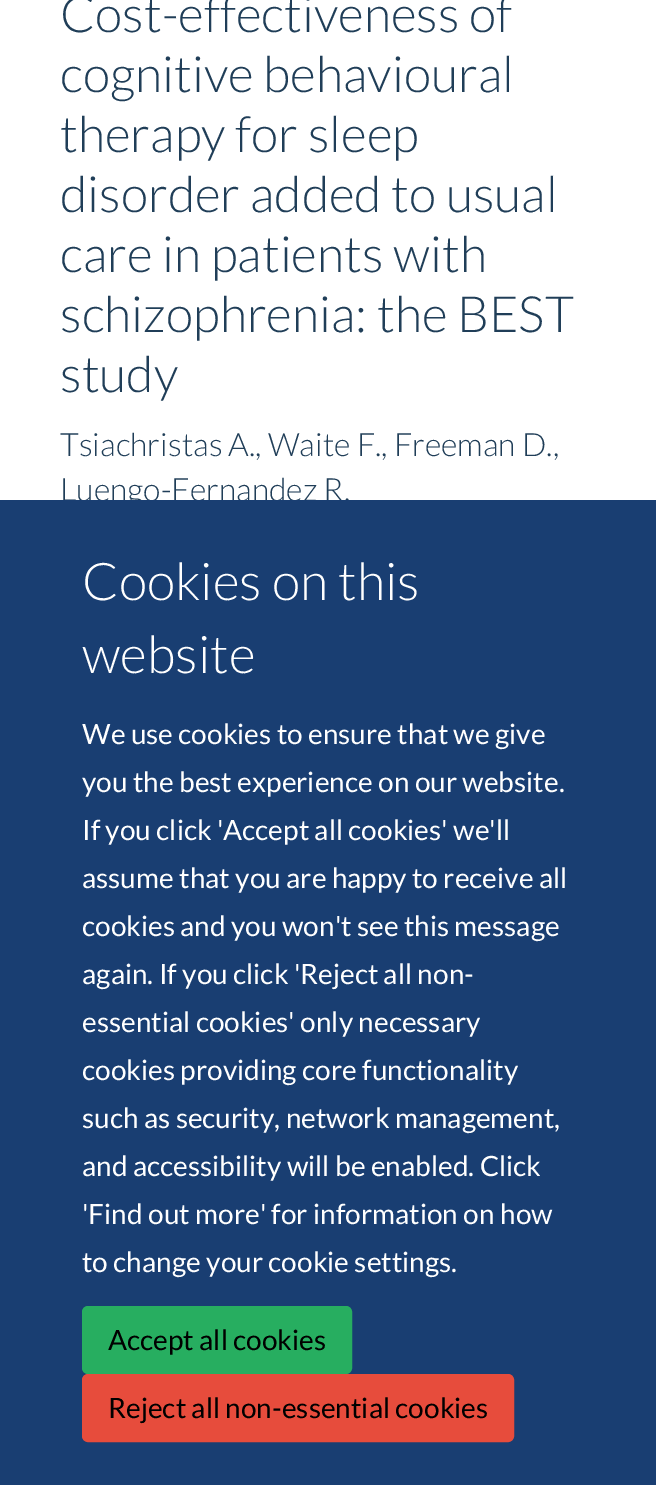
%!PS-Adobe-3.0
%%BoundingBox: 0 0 656 1485
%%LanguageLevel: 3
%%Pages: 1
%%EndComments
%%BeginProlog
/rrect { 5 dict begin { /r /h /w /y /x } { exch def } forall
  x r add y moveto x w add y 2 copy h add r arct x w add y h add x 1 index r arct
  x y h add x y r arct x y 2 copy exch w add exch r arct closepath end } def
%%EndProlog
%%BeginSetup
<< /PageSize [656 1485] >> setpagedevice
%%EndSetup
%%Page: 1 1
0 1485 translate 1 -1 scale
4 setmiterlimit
1 setgray
0 0 656 1485 rectfill
/Lato-Light [50 0 0 -50 0 0] selectfont
0.125 0.243 0.345 setrgbcolor
60 32 moveto (Cost-effectiveness of) show
60 92 moveto (cognitive behavioural) show
60 152 moveto (therapy for sleep) show
60 212 moveto (disorder added to usual) show
60 272 moveto (care in patients with) show
60 332 moveto (schizophrenia: the BEST) show
60 392 moveto (study) show
/Lato-Light [32 0 0 -32 0 0] selectfont
60 456 moveto (Tsiachristas A., Waite F., Freeman D.,) show
60 501 moveto (Luengo-Fernandez R.) show
0.098 0.243 0.447 setrgbcolor
0 500 656 985 rectfill
/Lato-Light [52 0 0 -52 0 0] selectfont
1 setgray
82 600 moveto (Cookies on this) show
82 673 moveto (website) show
/Lato-Regular [28 0 0 -28 0 0] selectfont
82 744 moveto (We use cookies to ensure that we give) show
82 792 moveto (you the best experience on our website.) show
82 840 moveto (If you click 'Accept all cookies' we'll) show
82 888 moveto (assume that you are happy to receive all) show
82 936 moveto (cookies and you won't see this message) show
82 984 moveto (again. If you click 'Reject all non-) show
82 1032 moveto (essential cookies' only necessary) show
82 1080 moveto (cookies providing core functionality) show
82 1128 moveto (such as security, network management,) show
82 1176 moveto (and accessibility will be enabled. Click) show
82 1224 moveto ('Find out more' for information on how) show
82 1272 moveto (to change your cookie settings.) show
0.153 0.682 0.376 setrgbcolor
83 1307 268 66 5 rrect gsave fill grestore
2 setlinewidth
stroke
0 setgray
108 1350 moveto (Accept all cookies) show
0.906 0.298 0.235 setrgbcolor
83 1375 430 66 5 rrect gsave fill grestore
stroke
0 setgray
108 1418 moveto (Reject all non-essential cookies) show
showpage
%%EOF
